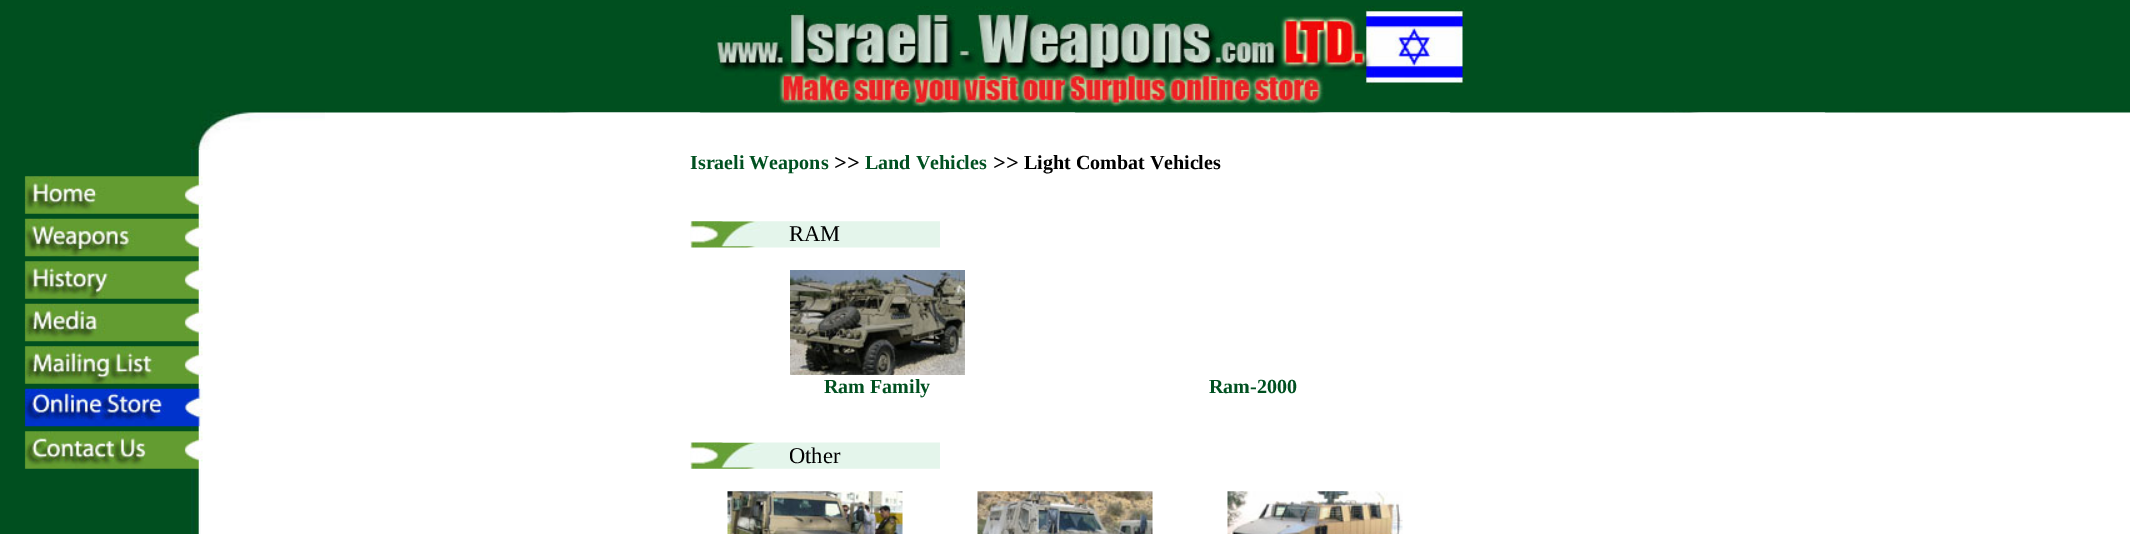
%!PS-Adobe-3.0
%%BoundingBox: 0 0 2130 534
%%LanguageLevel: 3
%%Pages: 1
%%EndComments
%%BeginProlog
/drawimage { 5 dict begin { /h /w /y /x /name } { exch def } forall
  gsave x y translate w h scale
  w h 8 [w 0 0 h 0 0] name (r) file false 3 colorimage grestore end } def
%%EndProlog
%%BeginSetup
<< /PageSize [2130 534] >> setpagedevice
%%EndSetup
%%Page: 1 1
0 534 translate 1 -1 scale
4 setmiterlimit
1 setgray
0 0 2130 534 rectfill
(images/1.raw) 0 0 201 534 drawimage
(images/2.raw) 190 0 135 150 drawimage
(images/3.raw) 325 0 1530 113 drawimage
(images/4.raw) 715 6 750 101 drawimage
(images/5.raw) 1855 0 275 114 drawimage
0.965 1 0.973 setrgbcolor
199 150 1 384 rectfill
(images/6.raw) 24 176 179 38 drawimage
(images/7.raw) 24 218 179 39 drawimage
(images/8.raw) 24 261 179 38 drawimage
(images/9.raw) 24 303 179 39 drawimage
(images/10.raw) 24 346 179 38 drawimage
(images/11.raw) 24 388 179 39 drawimage
(images/12.raw) 24 431 179 38 drawimage
(images/13.raw) 690 221 250 27 drawimage
(images/14.raw) 790 270 175 105 drawimage
(images/15.raw) 690 442 250 27 drawimage
(images/16.raw) 727 491 176 43 drawimage
(images/17.raw) 977 491 176 43 drawimage
(images/18.raw) 1227 491 176 43 drawimage
/LiberationSerif-Bold [20 0 0 -20 0 0] selectfont
0 0.314 0.125 setrgbcolor
690 169 moveto (Israeli Weapons) show
/LiberationSerif-Bold [22.5 0 0 -22.5 0 0] selectfont
0 setgray
834 170 moveto (>>) show
/LiberationSerif-Bold [20 0 0 -20 0 0] selectfont
0 0.314 0.125 setrgbcolor
865 169 moveto (Land Vehicles) show
/LiberationSerif-Bold [22.5 0 0 -22.5 0 0] selectfont
0 setgray
993 170 moveto (>>) show
/LiberationSerif-Bold [20 0 0 -20 0 0] selectfont
1024 169 moveto (Light Combat Vehicles) show
/LiberationSerif-Regular [22.5 0 0 -22.5 0 0] selectfont
789 241 moveto (RAM) show
/LiberationSerif-Bold [20 0 0 -20 0 0] selectfont
0 0.314 0.125 setrgbcolor
824 393 moveto (Ram Family) show
1209 393 moveto (Ram-2000) show
/LiberationSerif-Regular [22.5 0 0 -22.5 0 0] selectfont
0 setgray
789 463 moveto (Other) show
showpage
%%EOF
